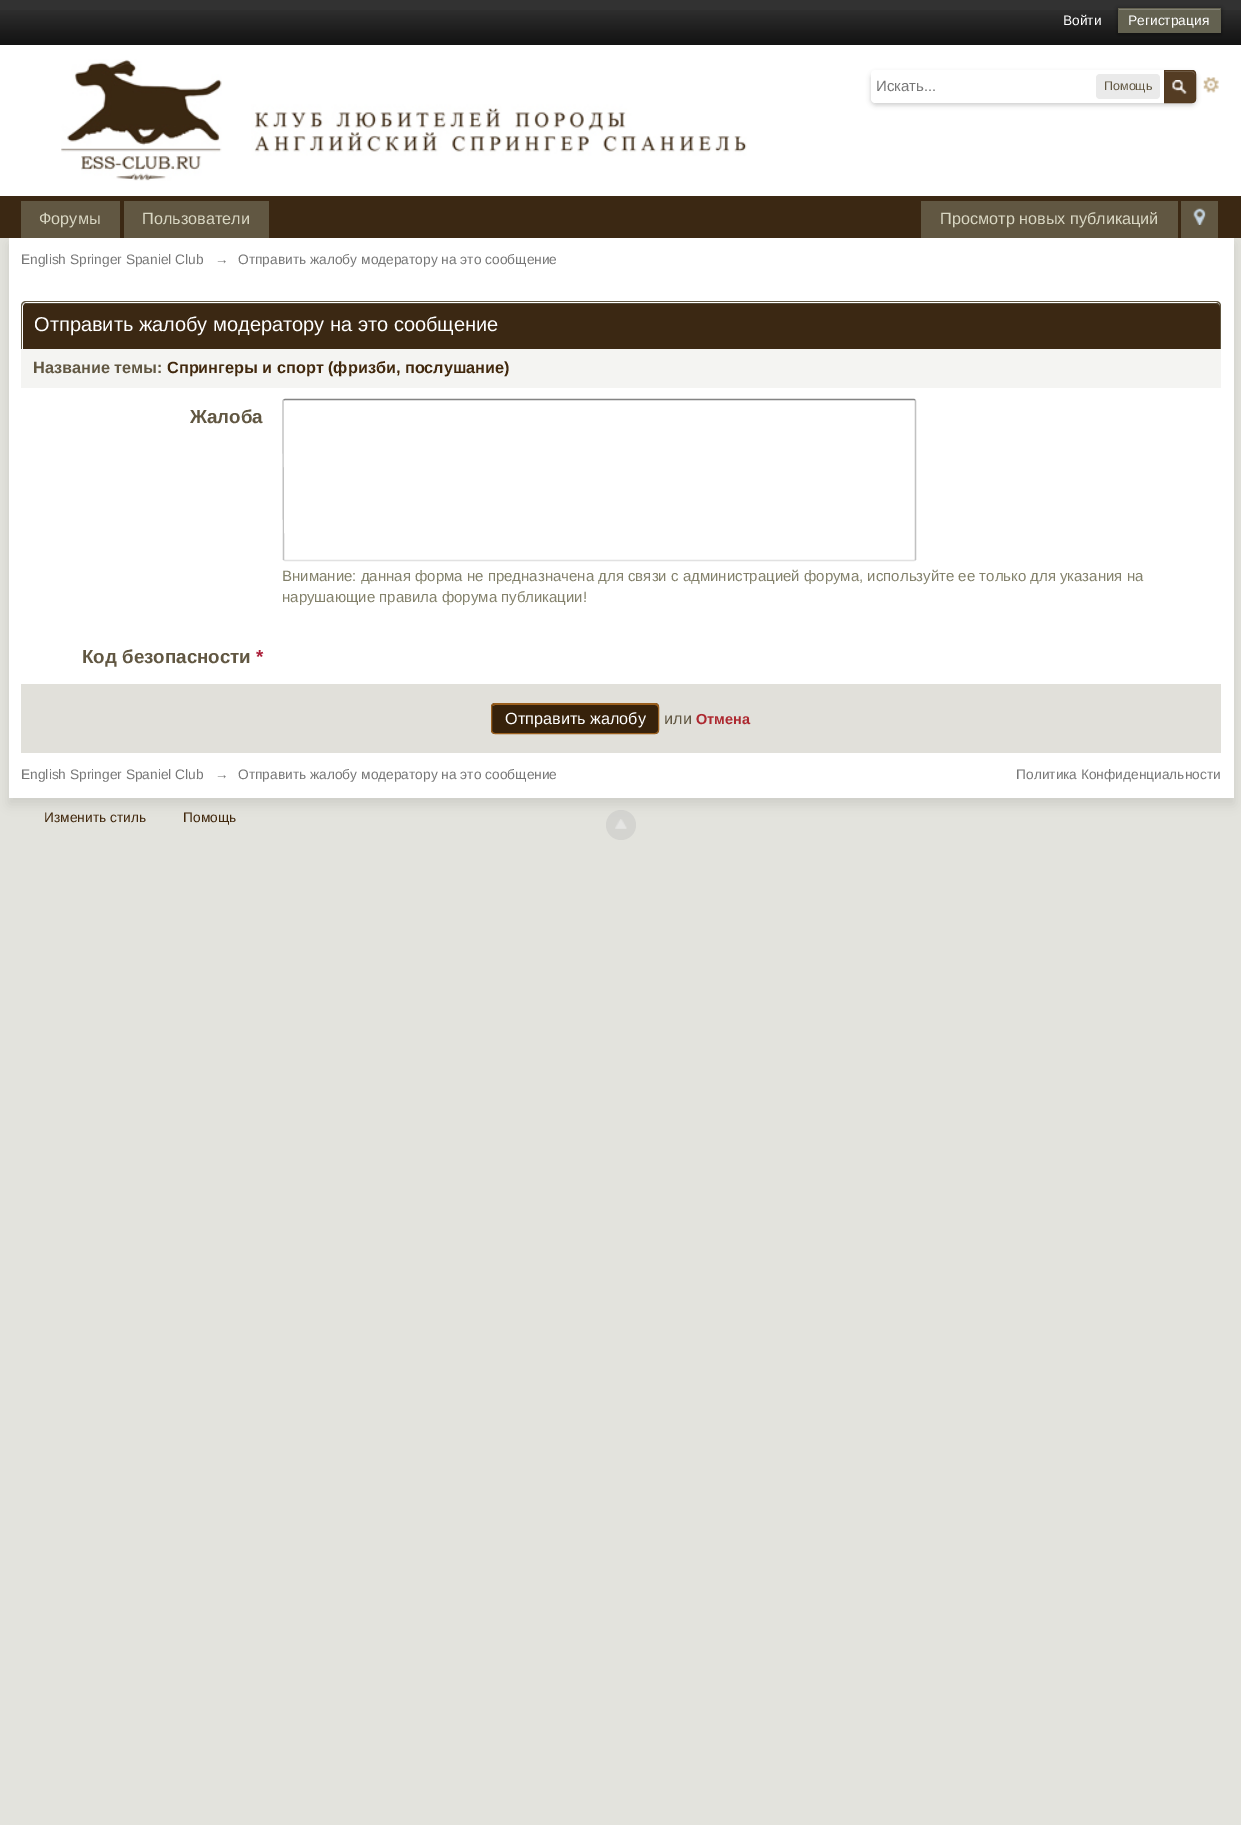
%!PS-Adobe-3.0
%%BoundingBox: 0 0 1241 1825
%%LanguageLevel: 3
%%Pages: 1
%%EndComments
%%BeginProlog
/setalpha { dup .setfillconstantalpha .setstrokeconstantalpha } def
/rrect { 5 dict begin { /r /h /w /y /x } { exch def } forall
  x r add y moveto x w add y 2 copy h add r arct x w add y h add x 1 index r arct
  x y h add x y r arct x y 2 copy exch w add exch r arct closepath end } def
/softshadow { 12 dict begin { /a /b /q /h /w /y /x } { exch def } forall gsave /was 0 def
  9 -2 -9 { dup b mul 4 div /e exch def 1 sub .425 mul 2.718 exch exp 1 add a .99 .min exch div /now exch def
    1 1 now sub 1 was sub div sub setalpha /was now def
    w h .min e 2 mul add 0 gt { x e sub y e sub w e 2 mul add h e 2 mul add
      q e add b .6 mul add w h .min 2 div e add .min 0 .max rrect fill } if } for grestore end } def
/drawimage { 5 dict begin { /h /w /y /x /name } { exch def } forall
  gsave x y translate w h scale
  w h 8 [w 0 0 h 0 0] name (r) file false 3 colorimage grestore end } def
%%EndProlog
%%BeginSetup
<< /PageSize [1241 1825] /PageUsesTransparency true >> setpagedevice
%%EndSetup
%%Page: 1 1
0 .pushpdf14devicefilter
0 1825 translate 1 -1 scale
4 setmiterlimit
0.89 0.89 0.867 setrgbcolor
0 0 1241 1825 rectfill
0.196 setgray
0 0 1241 10 rectfill
(images/1.raw) 0 10 1241 35 drawimage
0 setgray
1118 9 103 25 0 2.5 0.4 softshadow
0.388 0.38 0.314 setrgbcolor
1118 8 103 25 rectfill
0.51 0.506 0.451 setrgbcolor
1119 9 101 1 rectfill
1 setgray
0 45 1241 151 rectfill
(images/2.raw) 61 59 686 122 drawimage
(images/4.raw) 1203 77 16 16 drawimage
0 setgray
871 73 325 32 5 2.5 0.2 softshadow
1 setgray
newpath 875 70 moveto 1191 70 lineto 1194 70 1196 72 1196 75 curveto 1196 98 lineto 1196 101 1194 103 1191 103 curveto 875 103 lineto 873 103 871 101 871 99 curveto 871 74 lineto 871 72 873 70 875 70 curveto closepath fill
0.918 setgray
1096 74 64 25 4 rrect fill
0.329 0.235 0.137 setrgbcolor
newpath 1164 70 moveto 1192 70 lineto 1194 70 1196 72 1196 74 curveto 1196 99 lineto 1196 101 1194 103 1192 103 curveto 1164 103 lineto closepath fill
(images/3.raw) 1172 80 15 14 drawimage
0.463 0.388 0.31 setrgbcolor
newpath 1165 72 moveto 1192 72 lineto 1194 72 1195 74 1195 75 curveto 1195 73.5 lineto 1195 72 1194 71 1192.5 71 curveto 1165 71 lineto closepath fill
0.322 0.224 0.122 setrgbcolor
newpath 1164.5 70.5 moveto 1192 70.5 lineto 1194 70.5 1195.5 72 1195.5 74 curveto 1195.5 99 lineto 1195.5 101 1194 102.5 1192 102.5 curveto 1164.5 102.5 lineto closepath stroke
0.231 0.157 0.075 setrgbcolor
0 196 1241 42 rectfill
0 setgray
9 244 1225 560 0 5.5 0.1 softshadow
0.38 0.341 0.259 setrgbcolor
21 201 99 37 rectfill
124 201 145 37 rectfill
921 201 257 37 rectfill
1181 201 37 37 rectfill
(images/5.raw) 1193 208 13 17 drawimage
1 setgray
9 238 1225 560 rectfill
0.231 0.157 0.075 setrgbcolor
newpath 27 303 moveto 1216 303 lineto 1218 303 1220 305 1220 307 curveto 1220 349 lineto 23 349 lineto 23 307 lineto 23 305 25 303 27 303 curveto closepath fill
0.329 0.29 0.216 setrgbcolor
newpath 26 304 moveto 1216 304 lineto 1218 304 1220 305 1220 308 curveto 1220 307 lineto 1220 305 1218 303 1216 303 curveto 27 303 lineto 26 303 25 304 24 304 curveto closepath fill
0.38 0.341 0.259 setrgbcolor
newpath 26 301 moveto 1216 301 lineto 1219 301 1221 303 1221 306 curveto 1221 349 lineto 21 349 lineto 21 306 lineto 21 303 23 301 26 301 curveto closepath 26 302 moveto 1216 302 lineto 1218 302 1220 304 1220 306 curveto 1220 349 lineto 22 349 lineto 22 306 lineto 22 304 24 302 26 302 curveto closepath eofill
0.957 0.957 0.949 setrgbcolor
21 349 1200 39 rectfill
0.518 setgray
1.2 setlinewidth
newpath 283.5 400 moveto 285 399.5 lineto 914 399.5 lineto 915 400 lineto stroke
0.757 setgray
newpath 915 400 moveto 915.5 401 lineto 915.5 559.5 lineto 915 560 lineto stroke
0.882 setgray
newpath 915 560 moveto 914 560.5 lineto 285 560.5 lineto 283.5 560 lineto stroke
0.757 setgray
newpath 283.5 560 moveto 283.5 559.5 lineto 283 427.5 lineto 283 401 lineto 283.5 400 lineto stroke
0.882 0.878 0.855 setrgbcolor
21 684 1200 69 rectfill
0.216 0.133 0.043 setrgbcolor
491 703 168 31 4 rrect fill
0.604 0.373 0.118 setrgbcolor
newpath 495 705 moveto 655 705 lineto 656 705 658 706 658 708 curveto 658 706 lineto 658 705 657 704 656 704 curveto 496 704 lineto 494 704 493 705 493 706 curveto closepath fill
1 setlinewidth
491.5 703.5 167 30 3.5 rrect stroke
0.4 setalpha
0.741 setgray
newpath 621 825 15 0 360 arc closepath fill
1 setalpha
(images/6.raw) 615 819 12 10 drawimage
/LiberationSans-Regular [13.75 0 0 -13.75 0 0] selectfont
1 setgray
1063 25 moveto (Войти) show
1128 25 moveto (Регистрация) show
/LiberationSans-Regular [15 0 0 -15 0 0] selectfont
0.467 setgray
876 91 moveto (Искать...) show
/LiberationSans-Regular [12.5 0 0 -12.5 0 0] selectfont
0.38 0.341 0.259 setrgbcolor
1104 90 moveto (Помощь) show
/LiberationSans-Regular [16.25 0 0 -16.25 0 0] selectfont
0.851 0.843 0.765 setrgbcolor
39 224 moveto (Форумы) show
142 224 moveto (Пользователи) show
940 224 moveto (Просмотр новых публикаций) show
/LiberationSans-Regular [13.75 0 0 -13.75 0 0] selectfont
0.467 setgray
21 264 moveto (English Springer Spaniel Club) show
215 264 moveto (→) show
238 264 moveto (Отправить жалобу модератору на это сообщение) show
/LiberationSans-Regular [20 0 0 -20 0 0] selectfont
1 setgray
34 331 moveto (Отправить жалобу модератору на это сообщение) show
/LiberationSans-Bold [16.25 0 0 -16.25 0 0] selectfont
0.38 0.341 0.259 setrgbcolor
33 373 moveto (Название темы:) show
0.255 0.157 0.051 setrgbcolor
167 373 moveto (Спрингеры и спорт \(фризби, послушание\)) show
/LiberationSans-Bold [18.75 0 0 -18.75 0 0] selectfont
0.38 0.341 0.259 setrgbcolor
190 423 moveto (Жалоба) show
/LiberationSans-Regular [15 0 0 -15 0 0] selectfont
0.514 0.506 0.42 setrgbcolor
282 581 moveto (Внимание: данная форма не предназначена для связи с администрацией форума, используйте ее только для указания на) show
282 602 moveto (нарушающие правила форума публикации!) show
/LiberationSans-Bold [18.75 0 0 -18.75 0 0] selectfont
0.38 0.341 0.259 setrgbcolor
82 663 moveto (Код безопасности) show
0.671 0.122 0.224 setrgbcolor
256 663 moveto (*) show
/LiberationSans-Regular [16.25 0 0 -16.25 0 0] selectfont
1 setgray
505 724 moveto (Отправить жалобу) show
0.38 0.341 0.259 setrgbcolor
664 724 moveto (или) show
/LiberationSans-Bold [14.5 0 0 -14.5 0 0] selectfont
0.678 0.161 0.188 setrgbcolor
696 724 moveto (Отмена) show
/LiberationSans-Regular [13.75 0 0 -13.75 0 0] selectfont
0.467 setgray
21 779 moveto (English Springer Spaniel Club) show
215 779 moveto (→) show
238 779 moveto (Отправить жалобу модератору на это сообщение) show
1016 779 moveto (Политика Конфиденциальности) show
0.255 0.157 0.051 setrgbcolor
44 822 moveto (Изменить стиль) show
183 822 moveto (Помощь) show
.poppdf14devicefilter showpage
%%EOF
